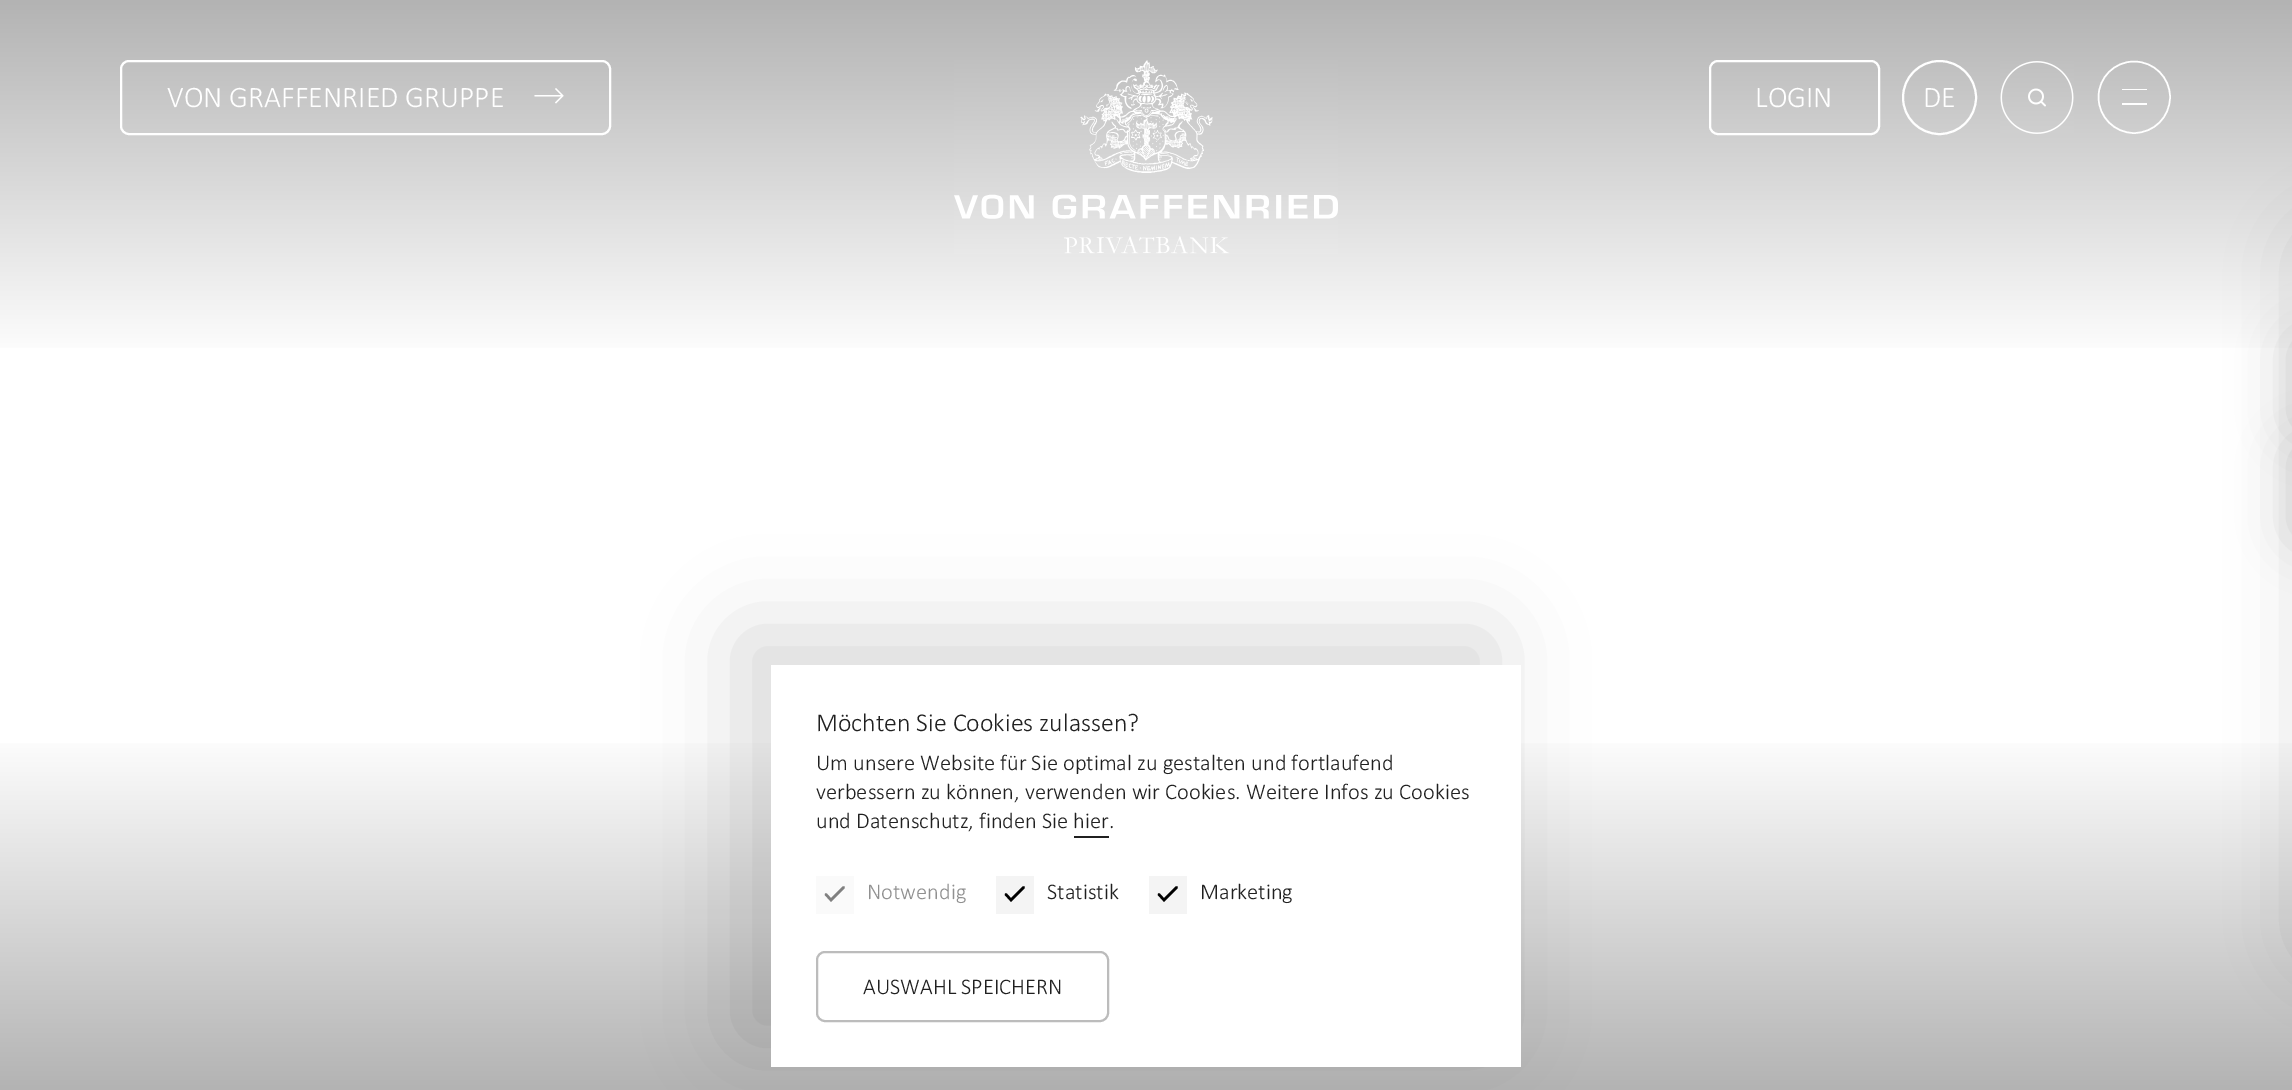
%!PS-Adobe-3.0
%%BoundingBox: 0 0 2292 1090
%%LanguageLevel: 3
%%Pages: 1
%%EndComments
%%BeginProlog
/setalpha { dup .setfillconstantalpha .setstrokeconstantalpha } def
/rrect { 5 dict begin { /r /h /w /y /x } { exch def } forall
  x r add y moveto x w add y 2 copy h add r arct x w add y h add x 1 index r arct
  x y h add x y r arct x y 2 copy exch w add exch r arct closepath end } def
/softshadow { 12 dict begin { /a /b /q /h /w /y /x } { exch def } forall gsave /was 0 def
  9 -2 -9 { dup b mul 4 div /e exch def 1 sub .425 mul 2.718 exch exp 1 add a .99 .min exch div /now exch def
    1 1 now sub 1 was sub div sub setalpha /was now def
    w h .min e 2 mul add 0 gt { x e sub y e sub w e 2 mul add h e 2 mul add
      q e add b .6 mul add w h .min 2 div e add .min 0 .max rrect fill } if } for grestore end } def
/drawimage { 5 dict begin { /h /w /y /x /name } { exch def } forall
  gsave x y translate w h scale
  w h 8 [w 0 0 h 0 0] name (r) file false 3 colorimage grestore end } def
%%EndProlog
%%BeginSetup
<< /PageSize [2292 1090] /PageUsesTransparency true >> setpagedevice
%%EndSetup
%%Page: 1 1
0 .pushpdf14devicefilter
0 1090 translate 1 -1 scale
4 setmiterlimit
1 setgray
0 0 2292 1090 rectfill
gsave newpath 0 0 moveto 2292 0 lineto 2292 348 lineto 0 348 lineto closepath clip newpath
<< /ShadingType 2 /ColorSpace /DeviceRGB /Coords [1146 0 1146 360] /Extend [true true] /Function << /FunctionType 2 /Domain [0 1] /C0 [0.702 0.702 0.702] /C1 [1 1 1] /N 1 >> >> shfill grestore
gsave newpath 0 743 moveto 2292 743 lineto 2292 1090 lineto 0 1090 lineto closepath clip newpath
<< /ShadingType 2 /ColorSpace /DeviceRGB /Coords [1146 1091 1146 731] /Extend [true true] /Function << /FunctionType 2 /Domain [0 1] /C0 [0.702 0.702 0.702] /C1 [1 1 1] /N 1 >> >> shfill grestore
2 setlinewidth
121 61 489 73 8 rrect stroke
newpath 534.5 95 moveto 561 95 lineto 555 89 lineto 556 88 lineto 563.5 95.5 lineto 563.5 96 lineto 556 103.5 lineto 555 102.5 lineto 561 96.5 lineto 534.5 96.5 lineto closepath fill
(images/1.raw) 954 60 384 194 drawimage
1710 61 169 73 8 rrect stroke
newpath 1939.5 97.5 36.5 0 360 arc closepath stroke
(images/2.raw) 2000 61 74 73 drawimage
1.5 setlinewidth
newpath 2134 133 moveto 2154 133 2170 117 2170 97 curveto 2170 77.5 2154 61.5 2134 61.5 curveto 2114.5 61.5 2098.5 77.5 2098.5 97 curveto 2098.5 117 2114.5 133 2134 133 curveto closepath stroke
2122 89 25 1 rectfill
2122 103 25 2 rectfill
0.392 setgray
2292 336 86 96 9 25.5 0.25 softshadow
2292 444 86 96 9 25.5 0.25 softshadow
0 setgray
741 635 750 402 0 45 0.15 softshadow
1 setgray
771 665 750 402 rectfill
0.125 setgray
1074 836 35 2 rectfill
0.98 setgray
816 876 38 38 rectfill
0.502 setgray
2.5 setlinewidth
1 setlinecap
newpath 826 894.5 moveto 831 900 lineto 843.5 887.5 lineto stroke
0.957 setgray
996 876 38 38 rectfill
0 setgray
newpath 1006 894.5 moveto 1011 900 lineto 1023.5 887.5 lineto stroke
0.957 setgray
1149 876 38 38 rectfill
0 setgray
newpath 1159 894.5 moveto 1164 900 lineto 1176.5 887.5 lineto stroke
0.737 setgray
2 setlinewidth
0 setlinecap
817 952 291 69 8 rrect stroke
0 setgray
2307 237 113 719 15 37.5 0.15 softshadow
/Calibri-Light [30 0 0 -30 0 0] selectfont
1 setgray
167 107 moveto (VON GRAFFENRIED GRUPPE) show
1755 107 moveto (LOGIN) show
1923 107 moveto (DE) show
/Calibri-Light [25.9 0 0 -25.9 0 0] selectfont
0.125 setgray
816 731 moveto (Möchten Sie Cookies zulassen?) show
/Calibri-Light [22.5 0 0 -22.5 0 0] selectfont
816 770 moveto (Um unsere Website für Sie optimal zu gestalten und fortlaufend) show
816 799 moveto (verbessern zu können, verwenden wir Cookies. Weitere Infos zu Cookies) show
816 828 moveto (und Datenschutz, finden Sie hier.) show
0.565 setgray
867 899 moveto (Notwendig) show
0.125 setgray
1047 899 moveto (Statistik) show
1200 899 moveto (Marketing) show
863 994 moveto (AUSWAHL SPEICHERN) show
.poppdf14devicefilter showpage
%%EOF
